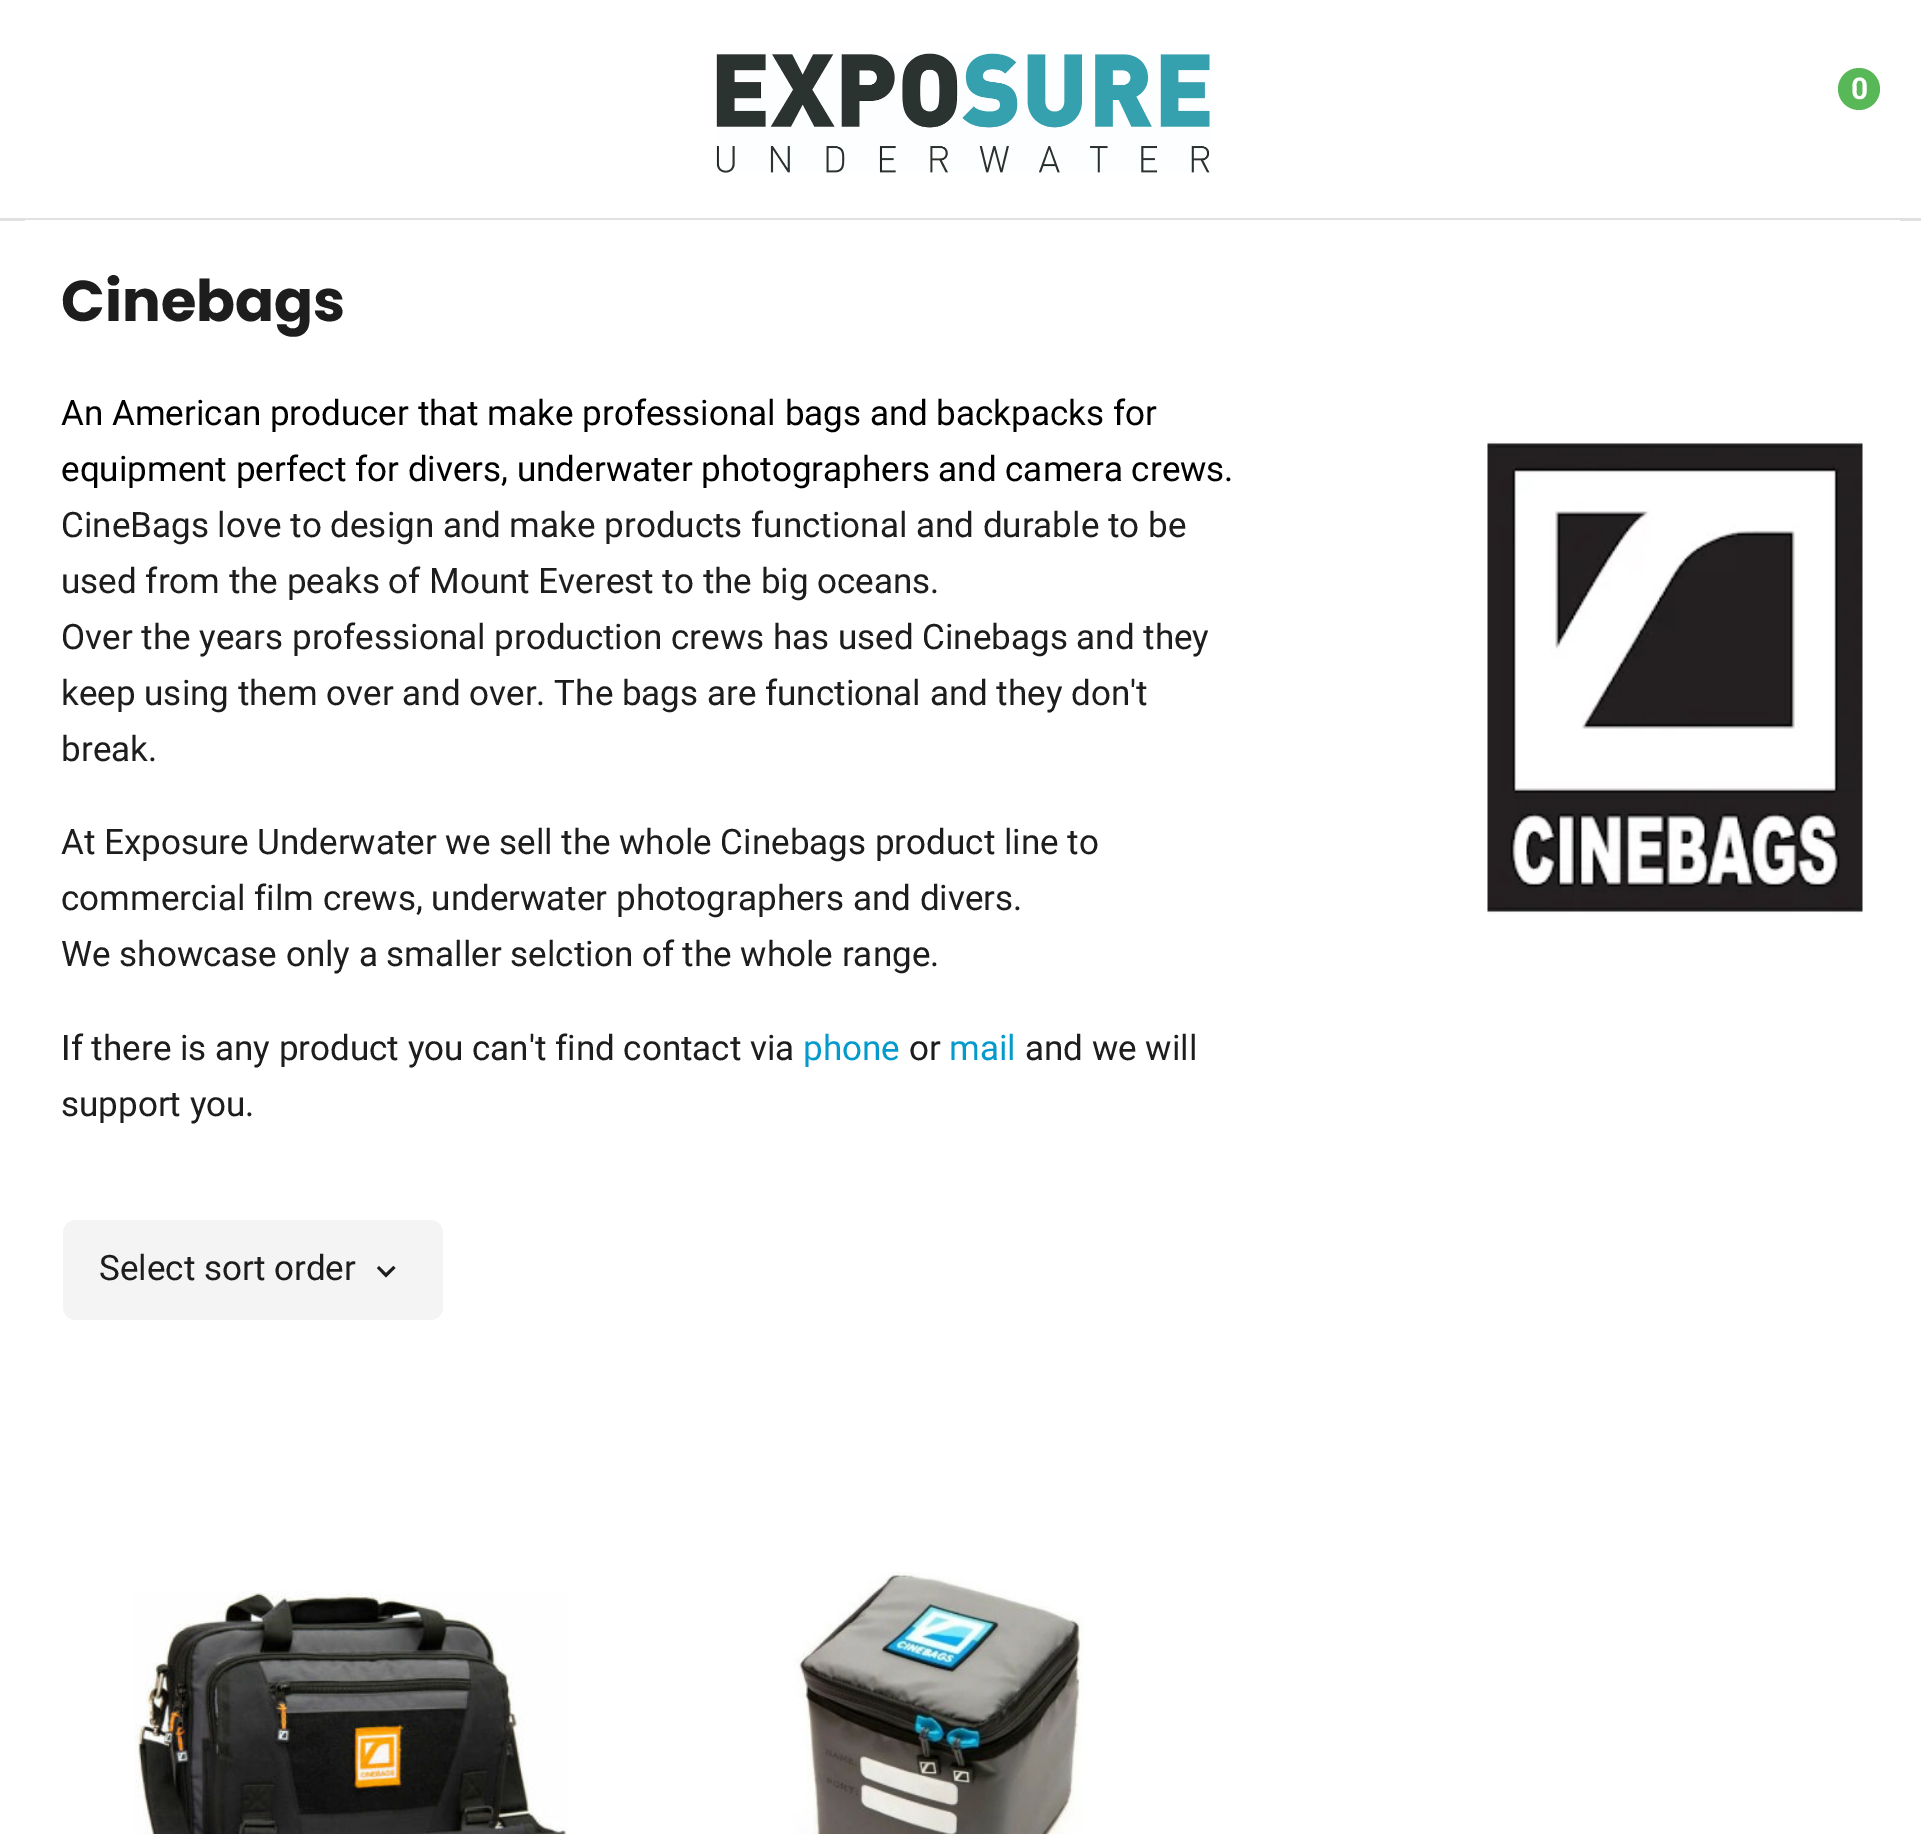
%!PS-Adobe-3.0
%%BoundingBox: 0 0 1921 1834
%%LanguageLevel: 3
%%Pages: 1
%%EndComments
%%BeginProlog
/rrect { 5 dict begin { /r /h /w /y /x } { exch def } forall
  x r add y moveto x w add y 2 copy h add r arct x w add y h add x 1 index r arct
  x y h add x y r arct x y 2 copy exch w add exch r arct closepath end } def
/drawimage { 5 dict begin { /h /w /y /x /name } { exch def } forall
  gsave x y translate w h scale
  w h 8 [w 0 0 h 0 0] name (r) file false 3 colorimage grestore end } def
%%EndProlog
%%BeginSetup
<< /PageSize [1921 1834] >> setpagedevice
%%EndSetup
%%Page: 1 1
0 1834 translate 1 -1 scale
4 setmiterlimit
1 setgray
0 0 1921 1834 rectfill
0.882 setgray
0 218 1921 3 rectfill
(images/1.raw) 716 53 494 120 drawimage
0.345 0.718 0.337 setrgbcolor
newpath 1859 89 21 0 360 arc closepath fill
1 setgray
25 220 1875 1 rectfill
(images/2.raw) 1487 441 376 473 drawimage
0.957 setgray
63 1220 380 100 13 rrect fill
0.114 setgray
newpath 386 1277.5 moveto 377 1268 lineto 379 1266 lineto 386 1273 lineto 393.5 1266 lineto 395.5 1268 lineto closepath fill
(images/3.raw) 134 1591 433 243 drawimage
(images/4.raw) 793 1572 291 262 drawimage
/Roboto-Bold [30 0 0 -30 0 0] selectfont
1 setgray
1851 99 moveto (0) show
/Poppins-Bold [57.5 0 0 -57.5 0 0] selectfont
0.114 setgray
61 321 moveto (Cinebags) show
/Roboto-Regular [35 0 0 -35 0 0] selectfont
0 setgray
61 425 moveto (An American producer that make professional bags and backpacks for) show
61 481 moveto (equipment perfect for divers, underwater photographers and camera crews.) show
0.114 setgray
61 537 moveto (CineBags love to design and make products functional and durable to be) show
61 593 moveto (used from the peaks of Mount Everest to the big oceans.) show
61 649 moveto (Over the years professional production crews has used Cinebags and they) show
61 705 moveto (keep using them over and over. The bags are functional and they don't) show
61 761 moveto (break.) show
61 854 moveto (At Exposure Underwater we sell the whole Cinebags product line to) show
61 910 moveto (commercial film crews, underwater photographers and divers.) show
61 966 moveto (We showcase only a smaller selction of the whole range.) show
61 1060 moveto (If there is any product you can't find contact via) show
0.016 0.604 0.796 setrgbcolor
803 1060 moveto (phone) show
0.114 setgray
909 1060 moveto (or) show
0.016 0.604 0.796 setrgbcolor
949 1060 moveto (mail) show
0.114 setgray
1025 1060 moveto (and we will) show
61 1116 moveto (support you.) show
99 1280 moveto (Select sort order) show
showpage
%%EOF
